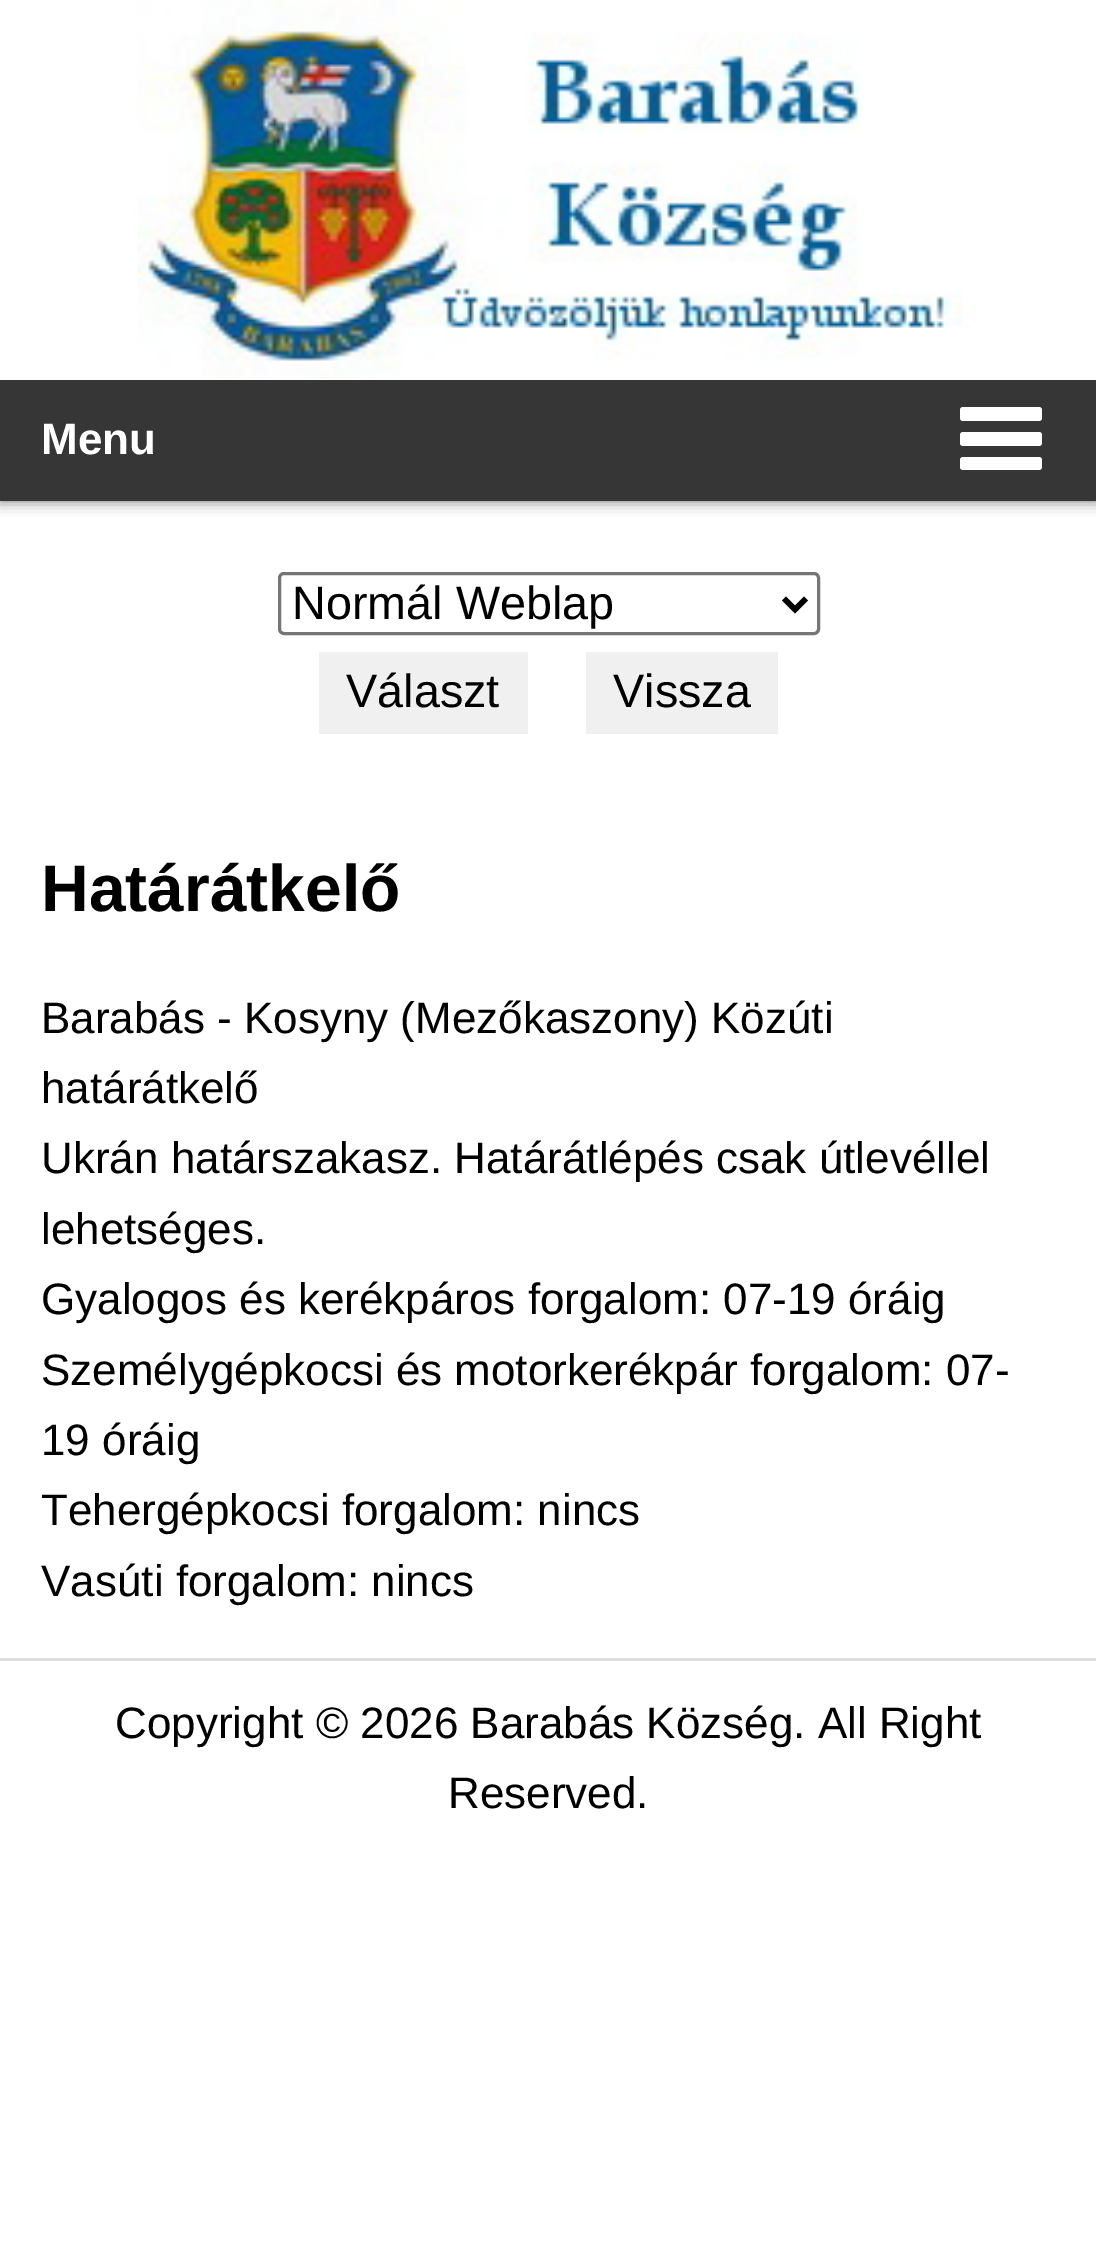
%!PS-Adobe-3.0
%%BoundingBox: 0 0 1096 2243
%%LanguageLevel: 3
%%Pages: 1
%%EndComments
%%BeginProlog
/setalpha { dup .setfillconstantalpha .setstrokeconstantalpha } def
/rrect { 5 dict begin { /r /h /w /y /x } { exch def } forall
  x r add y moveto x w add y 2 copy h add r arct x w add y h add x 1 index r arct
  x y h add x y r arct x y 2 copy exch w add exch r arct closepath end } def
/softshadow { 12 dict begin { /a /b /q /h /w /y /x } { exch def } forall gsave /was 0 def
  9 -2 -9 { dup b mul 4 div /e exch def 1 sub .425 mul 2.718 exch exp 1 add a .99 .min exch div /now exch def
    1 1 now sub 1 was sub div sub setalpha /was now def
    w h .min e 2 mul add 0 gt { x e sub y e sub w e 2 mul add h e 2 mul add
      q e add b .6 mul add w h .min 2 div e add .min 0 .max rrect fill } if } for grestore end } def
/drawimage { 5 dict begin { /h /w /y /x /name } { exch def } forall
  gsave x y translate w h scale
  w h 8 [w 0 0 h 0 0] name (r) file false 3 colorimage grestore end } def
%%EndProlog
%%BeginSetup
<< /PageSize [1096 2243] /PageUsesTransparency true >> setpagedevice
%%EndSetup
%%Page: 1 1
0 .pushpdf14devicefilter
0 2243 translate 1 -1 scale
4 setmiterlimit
1 setgray
0 0 1096 2243 rectfill
0.424 setgray
0 0 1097 501 0 7 1 softshadow
1 setgray
0 0 1096 380 rectfill
(images/1.raw) 137 0 826 379 drawimage
0.212 setgray
0 380 1096 121 rectfill
1 setgray
960 407 82 14 3 rrect fill
960 432 82 14 3 rrect fill
960 457 82 13 3 rrect fill
0.463 setgray
3 setlinewidth
279.5 573.5 539 60 4.5 rrect stroke
0 setgray
5.5 setlinewidth
newpath 784 598.5 moveto 795 609.5 lineto 806 598.5 lineto stroke
0.941 setgray
319 652 209 82 rectfill
586 652 192 82 rectfill
0.871 setgray
0 1658 1096 3 rectfill
/LiberationSans-Bold [44 0 0 -44 0 0] selectfont
1 setgray
41 454 moveto (Menu) show
/LiberationSans-Regular [46.75 0 0 -46.75 0 0] selectfont
0 setgray
292 619 moveto (Normál Weblap) show
346 707 moveto (Választ) show
613 707 moveto (Vissza) show
/LiberationSans-Bold [66 0 0 -66 0 0] selectfont
41 911 moveto (Határátkelő) show
/LiberationSans-Regular [44 0 0 -44 0 0] selectfont
41 1033 moveto (Barabás - Kosyny \(Mezőkaszony\) Közúti) show
41 1103 moveto (határátkelő) show
41 1173 moveto (Ukrán határszakasz. Határátlépés csak útlevéllel) show
41 1244 moveto (lehetséges.) show
41 1314 moveto (Gyalogos és kerékpáros forgalom: 07-19 óráig) show
41 1385 moveto (Személygépkocsi és motorkerékpár forgalom: 07-) show
41 1455 moveto (19 óráig) show
41 1525 moveto (Tehergépkocsi forgalom: nincs) show
41 1596 moveto (Vasúti forgalom: nincs) show
115 1738 moveto (Copyright © 2026 Barabás Község. All Right) show
448 1808 moveto (Reserved.) show
.poppdf14devicefilter showpage
%%EOF
